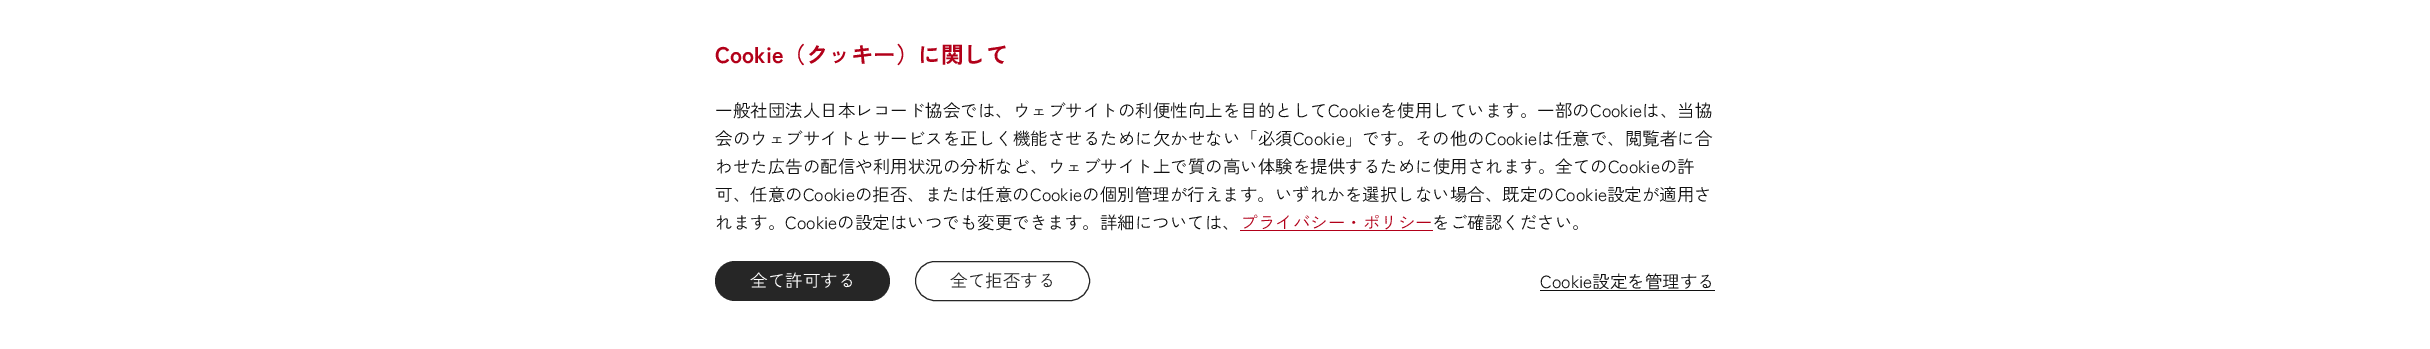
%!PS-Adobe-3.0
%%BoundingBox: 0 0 2430 349
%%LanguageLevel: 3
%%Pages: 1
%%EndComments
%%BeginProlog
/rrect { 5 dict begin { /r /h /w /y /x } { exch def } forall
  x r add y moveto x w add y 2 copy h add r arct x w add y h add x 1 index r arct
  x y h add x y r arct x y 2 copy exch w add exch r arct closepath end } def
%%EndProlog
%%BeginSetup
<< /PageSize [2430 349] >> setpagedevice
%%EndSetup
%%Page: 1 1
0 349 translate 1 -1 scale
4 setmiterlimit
1 setgray
0 0 2430 349 rectfill
0.698 0 0.098 setrgbcolor
1240 230 193 1 rectfill
0.149 setgray
715 261 175 40 20 rrect fill
915.5 261.5 174 39 19.5 rrect stroke
0.063 setgray
1540 290 175 1 rectfill
/ZenKakuGothicNew-Bold [22.5 0 0 -22.5 0 0] selectfont
0.698 0 0.098 setrgbcolor
715 63 moveto (Cookie（クッキー）に関して) show
/ZenKakuGothicNew-Regular [17.5 0 0 -17.5 0 0] selectfont
0.063 setgray
715 117 moveto (一般社団法人日本レコード協会では、ウェブサイトの利便性向上を目的としてCookieを使用しています。一部のCookieは、当協) show
715 145 moveto (会のウェブサイトとサービスを正しく機能させるために欠かせない「必須Cookie」です。その他のCookieは任意で、閲覧者に合) show
715 173 moveto (わせた広告の配信や利用状況の分析など、ウェブサイト上で質の高い体験を提供するために使用されます。全てのCookieの許) show
715 201 moveto (可、任意のCookieの拒否、または任意のCookieの個別管理が行えます。いずれかを選択しない場合、既定のCookie設定が適用さ) show
715 229 moveto (れます。Cookieの設定はいつでも変更できます。詳細については、) show
0.698 0 0.098 setrgbcolor
1240 229 moveto (プライバシー・ポリシー) show
0.063 setgray
1432 229 moveto (をご確認ください。) show
1 setgray
750 287 moveto (全て許可する) show
0.149 setgray
950 287 moveto (全て拒否する) show
0.063 setgray
1540 288 moveto (Cookie設定を管理する) show
showpage
%%EOF
